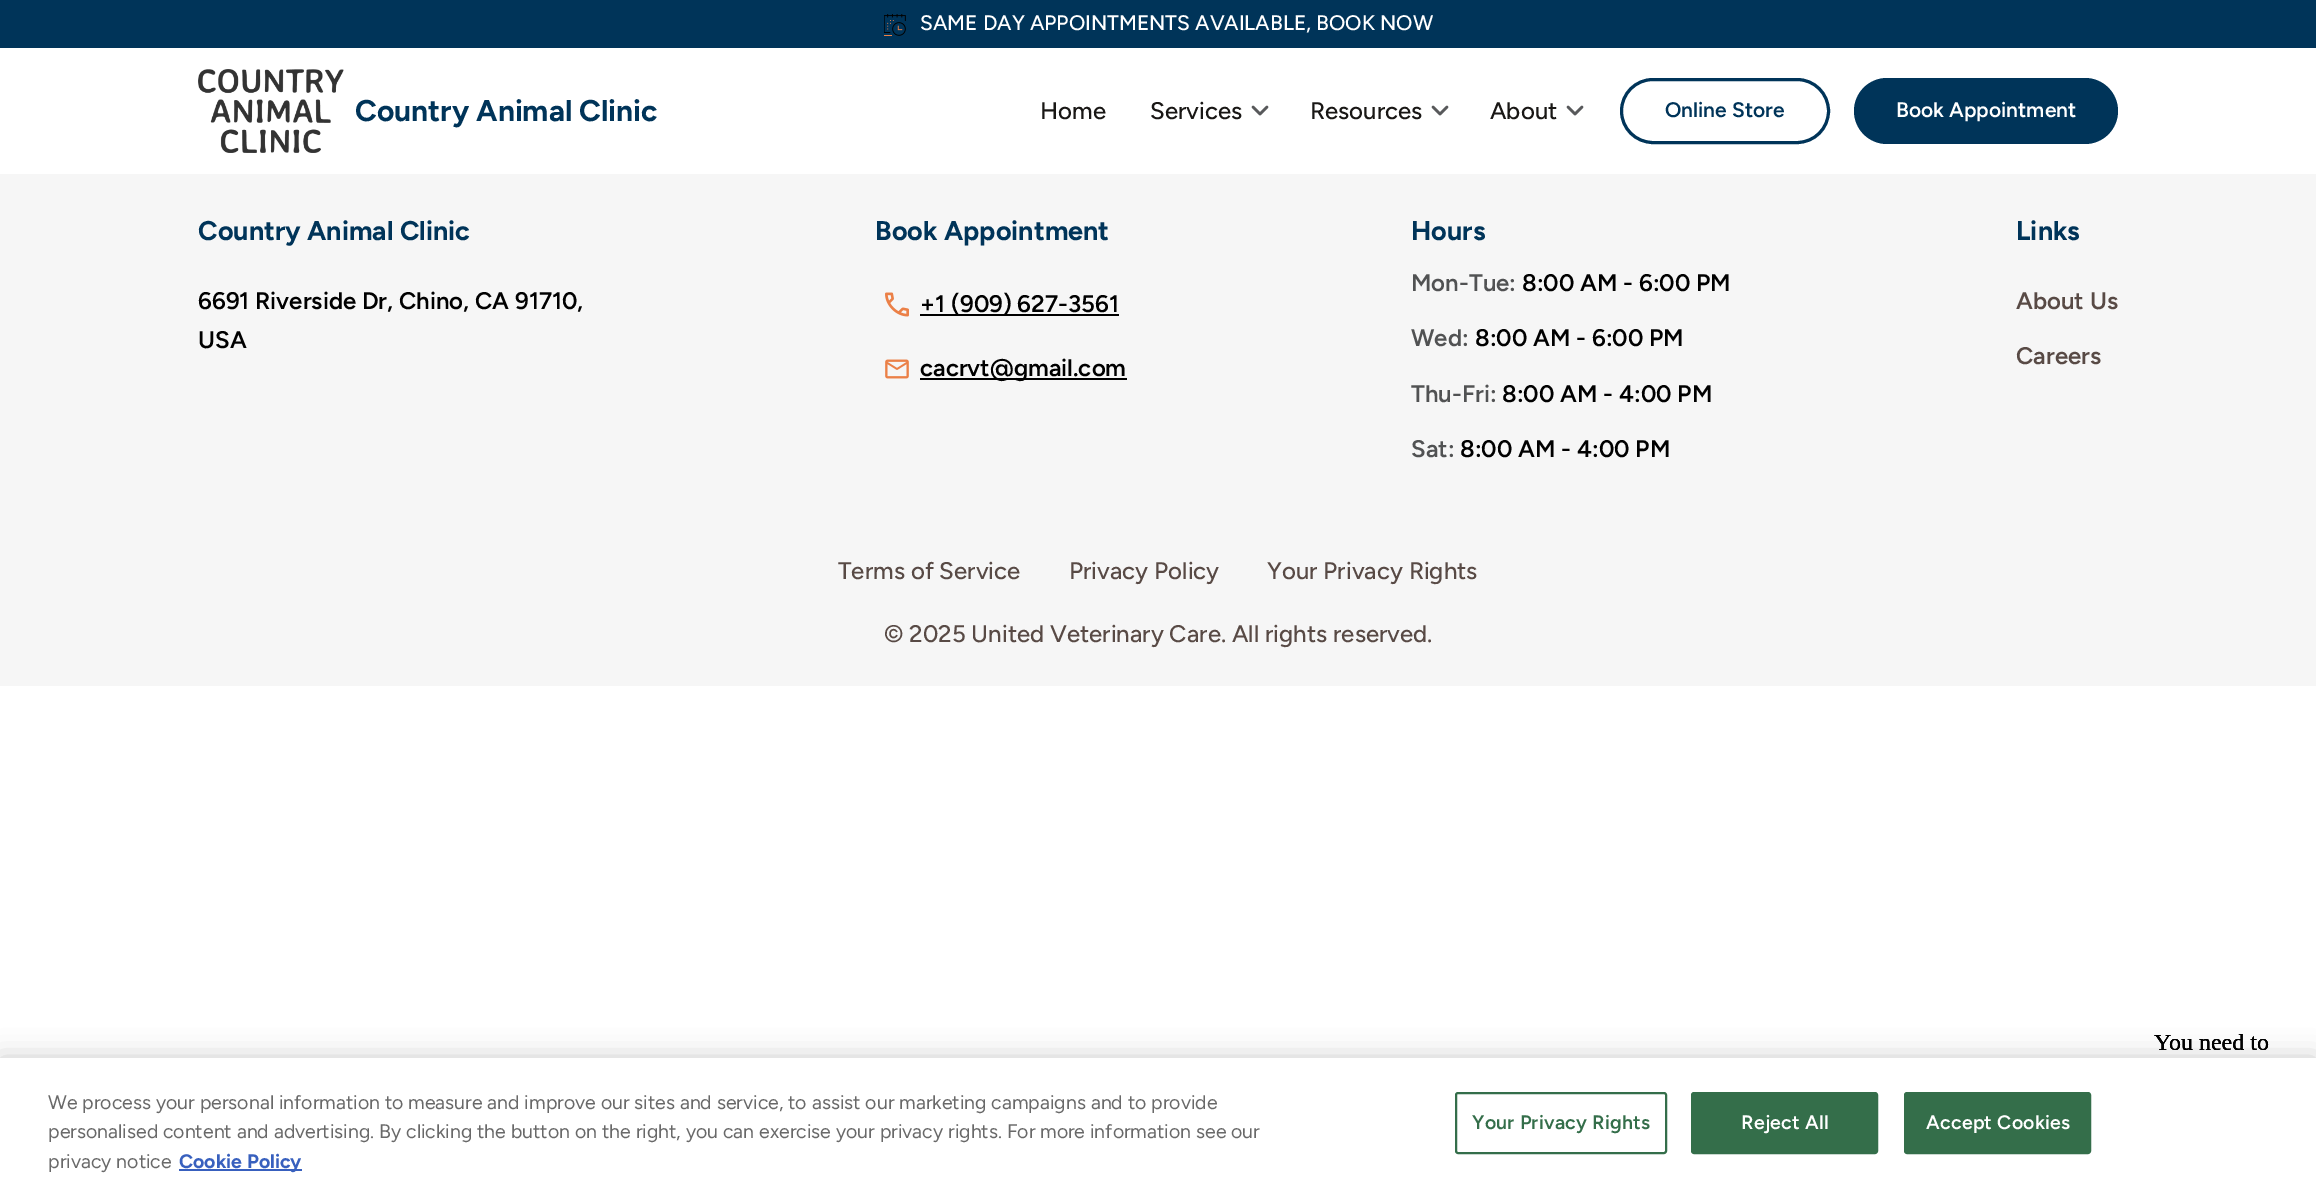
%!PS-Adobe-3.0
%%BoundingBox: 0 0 2316 1190
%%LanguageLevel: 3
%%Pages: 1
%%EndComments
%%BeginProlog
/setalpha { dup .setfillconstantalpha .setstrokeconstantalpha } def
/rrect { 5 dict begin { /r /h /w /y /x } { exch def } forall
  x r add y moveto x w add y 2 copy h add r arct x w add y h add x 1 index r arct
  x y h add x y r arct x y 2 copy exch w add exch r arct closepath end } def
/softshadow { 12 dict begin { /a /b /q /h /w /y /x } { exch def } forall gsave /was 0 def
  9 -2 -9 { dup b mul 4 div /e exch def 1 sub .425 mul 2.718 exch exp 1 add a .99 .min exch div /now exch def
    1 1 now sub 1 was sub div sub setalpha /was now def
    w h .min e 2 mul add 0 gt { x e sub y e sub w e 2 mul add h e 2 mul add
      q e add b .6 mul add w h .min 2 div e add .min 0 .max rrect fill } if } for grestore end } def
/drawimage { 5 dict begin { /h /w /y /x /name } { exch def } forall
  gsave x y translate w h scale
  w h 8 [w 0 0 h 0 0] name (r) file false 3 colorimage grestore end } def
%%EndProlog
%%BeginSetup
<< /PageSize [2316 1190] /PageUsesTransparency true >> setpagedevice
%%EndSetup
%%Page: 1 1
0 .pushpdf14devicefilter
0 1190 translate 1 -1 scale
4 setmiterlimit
1 setgray
0 0 2316 1190 rectfill
0 0.204 0.349 setrgbcolor
0 0 2316 48 rectfill
(images/1.raw) 884 14 22 22 drawimage
(images/2.raw) 198 69 146 84 drawimage
(images/3.raw) 1251 105 18 11 drawimage
(images/3.raw) 1431 105 18 11 drawimage
(images/3.raw) 1566 105 18 11 drawimage
3 setlinewidth
1621.5 79.5 207 63 31.5 rrect stroke
1854 78 264 66 33 rrect fill
0.965 setgray
0 174 2316 512 rectfill
(images/4.raw) 885 292 24 25 drawimage
0 setgray
920 314 199 2 rectfill
(images/5.raw) 885 359 24 20 drawimage
920 378 207 2 rectfill
(images/6.raw) 2154 1034 115 16 drawimage
(images/7.raw) 2154 1034 115 16 drawimage
(images/8.raw) 2154 1034 115 16 drawimage
0 1058 2316 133 0 13.5 0.2 softshadow
1 setgray
0 1058 2316 132 rectfill
0.22 0.376 0.745 setrgbcolor
179 1169 123 2 rectfill
0.204 0.431 0.29 setrgbcolor
2 setlinewidth
1456 1093 210 60 2 rrect stroke
1692 1093 185 60 2 rrect gsave fill grestore
stroke
1905 1093 185 60 2 rrect gsave fill grestore
stroke
/Figtree-Medium [21 0 0 -21 0 0] selectfont
1 setgray
920 30 moveto (SAME DAY APPOINTMENTS AVAILABLE, BOOK NOW) show
/Figtree-Bold [30 0 0 -30 0 0] selectfont
0 0.204 0.349 setrgbcolor
355 121 moveto (Country Animal Clinic) show
/Figtree-Medium [24 0 0 -24 0 0] selectfont
0.098 0.09 0.082 setrgbcolor
1040 119 moveto (Home) show
1150 119 moveto (Services) show
1310 119 moveto (Resources) show
1490 119 moveto (About) show
/Figtree-SemiBold [21 0 0 -21 0 0] selectfont
0 0.204 0.349 setrgbcolor
1665 117 moveto (Online Store) show
1 setgray
1896 117 moveto (Book Appointment) show
/Figtree-Bold [27 0 0 -27 0 0] selectfont
0 0.204 0.349 setrgbcolor
198 240 moveto (Country Animal Clinic) show
/Figtree-SemiBold [24 0 0 -24 0 0] selectfont
0 setgray
198 309 moveto (6691 Riverside Dr, Chino, CA 91710,) show
198 348 moveto (USA) show
/Figtree-Bold [27 0 0 -27 0 0] selectfont
0 0.204 0.349 setrgbcolor
875 240 moveto (Book Appointment) show
/Figtree-SemiBold [24 0 0 -24 0 0] selectfont
0 setgray
920 312 moveto (+1 \(909\) 627-3561) show
920 376 moveto (cacrvt@gmail.com) show
/Figtree-Bold [27 0 0 -27 0 0] selectfont
0 0.204 0.349 setrgbcolor
1411 240 moveto (Hours) show
/Figtree-SemiBold [24 0 0 -24 0 0] selectfont
0.318 0.322 0.325 setrgbcolor
1411 291 moveto (Mon-Tue:) show
0 setgray
1522 291 moveto (8:00 AM - 6:00 PM) show
0.318 0.322 0.325 setrgbcolor
1411 346 moveto (Wed:) show
0 setgray
1475 346 moveto (8:00 AM - 6:00 PM) show
0.318 0.322 0.325 setrgbcolor
1411 402 moveto (Thu-Fri:) show
0 setgray
1502 402 moveto (8:00 AM - 4:00 PM) show
0.318 0.322 0.325 setrgbcolor
1411 457 moveto (Sat:) show
0 setgray
1460 457 moveto (8:00 AM - 4:00 PM) show
/Figtree-Bold [27 0 0 -27 0 0] selectfont
0 0.204 0.349 setrgbcolor
2016 240 moveto (Links) show
/Figtree-SemiBold [24 0 0 -24 0 0] selectfont
0.345 0.29 0.271 setrgbcolor
2016 309 moveto (About Us) show
2016 364 moveto (Careers) show
/Figtree-Medium [24 0 0 -24 0 0] selectfont
838 579 moveto (Terms of Service) show
1069 579 moveto (Privacy Policy) show
1267 579 moveto (Your Privacy Rights) show
884 642 moveto (© 2025 United Veterinary Care. All rights reserved.) show
/Figtree-Regular [19.5 0 0 -19.5 0 0] selectfont
0.412 setgray
48 1109 moveto (We process your personal information to measure and improve our sites and service, to assist our marketing campaigns and to provide) show
48 1138 moveto (personalised content and advertising. By clicking the button on the right, you can exercise your privacy rights. For more information see our) show
48 1168 moveto (privacy notice) show
/Figtree-Bold [19.5 0 0 -19.5 0 0] selectfont
0.22 0.376 0.745 setrgbcolor
179 1168 moveto (Cookie Policy) show
/Figtree-SemiBold [19.5 0 0 -19.5 0 0] selectfont
0.204 0.431 0.29 setrgbcolor
1472 1129 moveto 0.25 0 (Your Privacy Rights) ashow
1 setgray
1741 1129 moveto 0.25 0 (Reject All) ashow
1926 1129 moveto 0.25 0 (Accept Cookies) ashow
.poppdf14devicefilter showpage
%%EOF
